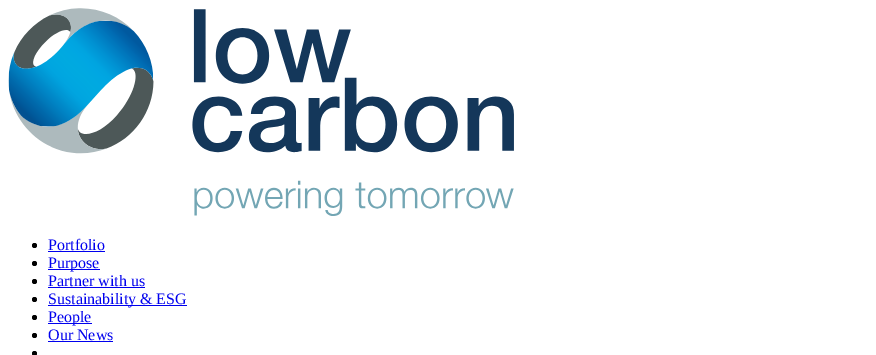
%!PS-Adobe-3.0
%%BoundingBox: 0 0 876 355
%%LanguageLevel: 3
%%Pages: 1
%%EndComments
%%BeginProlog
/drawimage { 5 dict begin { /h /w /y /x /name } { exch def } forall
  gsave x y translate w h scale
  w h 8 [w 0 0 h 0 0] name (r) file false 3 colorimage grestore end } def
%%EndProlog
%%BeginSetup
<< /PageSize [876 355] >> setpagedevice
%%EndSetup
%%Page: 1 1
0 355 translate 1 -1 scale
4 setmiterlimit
1 setgray
0 0 876 355 rectfill
(images/1.raw) 8 8 506 208 drawimage
0 setgray
newpath 34.5 245.5 2.5 0 360 arc closepath fill
0 0 0.933 setrgbcolor
48 251 57 1 rectfill
0 setgray
newpath 34.5 263.5 2.5 0 360 arc closepath fill
0 0 0.933 setrgbcolor
48 269 52 1 rectfill
0 setgray
newpath 34.5 281.5 2.5 0 360 arc closepath fill
0 0 0.933 setrgbcolor
48 287 97 1 rectfill
0 setgray
newpath 34.5 299.5 2.5 0 360 arc closepath fill
0 0 0.933 setrgbcolor
48 305 139 1 rectfill
0 setgray
newpath 34.5 317.5 2.5 0 360 arc closepath fill
0 0 0.933 setrgbcolor
48 323 44 1 rectfill
0 setgray
newpath 34.5 335.5 2.5 0 360 arc closepath fill
0 0 0.933 setrgbcolor
48 341 65 1 rectfill
0 setgray
newpath 34.5 353.5 2.5 0 360 arc closepath fill
/LiberationSerif-Regular [16 0 0 -16 0 0] selectfont
0 0 0.933 setrgbcolor
48 250 moveto (Portfolio) show
48 268 moveto (Purpose) show
48 286 moveto (Partner with us) show
48 304 moveto (Sustainability & ESG) show
48 322 moveto (People) show
48 340 moveto (Our News) show
showpage
%%EOF
